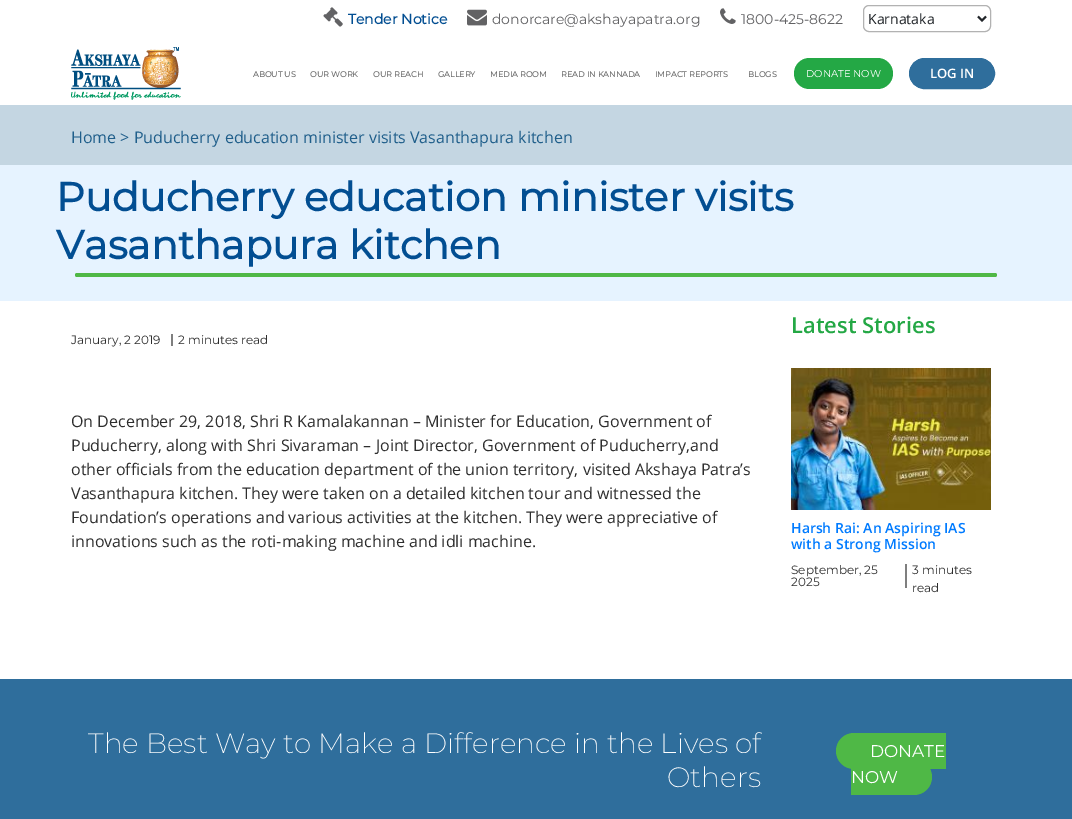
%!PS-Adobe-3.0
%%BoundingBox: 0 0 1072 819
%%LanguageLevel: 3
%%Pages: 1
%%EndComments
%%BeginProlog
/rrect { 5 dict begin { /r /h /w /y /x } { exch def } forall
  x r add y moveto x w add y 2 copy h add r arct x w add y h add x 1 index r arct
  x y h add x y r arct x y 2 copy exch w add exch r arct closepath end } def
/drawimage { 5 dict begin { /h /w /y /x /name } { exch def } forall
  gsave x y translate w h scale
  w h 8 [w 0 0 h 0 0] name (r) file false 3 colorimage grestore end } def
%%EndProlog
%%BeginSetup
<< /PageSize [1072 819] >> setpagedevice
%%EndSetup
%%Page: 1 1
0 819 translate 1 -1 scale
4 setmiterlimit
1 setgray
0 0 1072 819 rectfill
(images/1.raw) 323 7 20 20 drawimage
(images/2.raw) 467 9 20 17 drawimage
(images/3.raw) 720 8 16 16 drawimage
0.698 setgray
863.5 5.5 127 26 5.5 rrect stroke
0.129 0.145 0.161 setrgbcolor
2 setlinewidth
newpath 978 16.5 moveto 982 20.5 lineto 986 16.5 lineto stroke
(images/4.raw) 71 47 110 53 drawimage
0.141 0.659 0.271 setrgbcolor
794 58 99 31 15.5 rrect fill
0.184 0.431 0.612 setrgbcolor
909.5 58.5 85 30 15 rrect gsave fill grestore
1 setlinewidth
stroke
0.769 0.839 0.886 setrgbcolor
0 105 1072 60 rectfill
0.902 0.953 1 setrgbcolor
0 165 1072 136 rectfill
0.31 0.722 0.275 setrgbcolor
75 273 922 4 2 rrect fill
0.498 setgray
171 334 2 12 rectfill
(images/5.raw) 791 368 200 142 drawimage
905 564 2 24 rectfill
0.184 0.431 0.612 setrgbcolor
0 679 1072 140 rectfill
0.31 0.722 0.275 setrgbcolor
newpath 854 733 moveto 946 733 lineto 946 769 lineto 854 769 lineto 844 769 836 761 836 751 curveto 836 741 844 733 854 733 curveto closepath fill
newpath 851 759 moveto 914 759 lineto 924 759 932 767 932 777 curveto 932 787 924 795 914 795 curveto 851 795 lineto closepath fill
/Montserrat-Bold [14 0 0 -14 0 0] selectfont
0.008 0.306 0.573 setrgbcolor
348 24 moveto (Tender Notice) show
/Montserrat-Regular [14 0 0 -14 0 0] selectfont
0.384 0.384 0.392 setrgbcolor
492 24 moveto (donorcare@akshayapatra.org) show
741 24 moveto (1800-425-8622) show
/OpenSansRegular-Regular [14 0 0 -14 0 0] selectfont
0.129 0.145 0.161 setrgbcolor
868 24 moveto (Karnataka) show
/Montserrat-Bold [8 0 0 -8 0 0] selectfont
0.439 setgray
253 77 moveto (ABOUT US) show
310 77 moveto (OUR WORK) show
373 77 moveto (OUR REACH) show
438 77 moveto (GALLERY) show
490 77 moveto (MEDIA ROOM) show
561 77 moveto (READ IN KANNADA) show
655 77 moveto (IMPACT REPORTS) show
748 77 moveto (BLOGS) show
/Montserrat-Regular [10 0 0 -10 0 0] selectfont
1 setgray
806 77 moveto (DONATE NOW) show
/OpenSans-SemiBold [13 0 0 -13 0 0] selectfont
930 78 moveto (LOG IN) show
/OpenSansRegular-Regular [16 0 0 -16 0 0] selectfont
0.125 0.373 0.545 setrgbcolor
71 143 moveto (Home > Puducherry education minister visits Vasanthapura kitchen) show
/Montserrat-Bold [40 0 0 -40 0 0] selectfont
0.008 0.306 0.573 setrgbcolor
56 211 moveto (Puducherry education minister visits) show
56 259 moveto (Vasanthapura kitchen) show
/Montserrat-Regular [12 0 0 -12 0 0] selectfont
0.18 setgray
71 344 moveto (January, 2 2019) show
178 344 moveto (2 minutes read) show
/OpenSansRegular-Regular [16 0 0 -16 0 0] selectfont
71 427 moveto (On December 29, 2018, Shri R Kamalakannan – Minister for Education, Government of) show
71 451 moveto (Puducherry, along with Shri Sivaraman – Joint Director, Government of Puducherry,and) show
71 475 moveto (other officials from the education department of the union territory, visited Akshaya Patra’s) show
71 499 moveto (Vasanthapura kitchen. They were taken on a detailed kitchen tour and witnessed the) show
71 523 moveto (Foundation’s operations and various activities at the kitchen. They were appreciative of) show
71 547 moveto (innovations such as the roti-making machine and idli machine.) show
/OpenSans-SemiBold [22 0 0 -22 0 0] selectfont
0.141 0.659 0.271 setrgbcolor
791 333 moveto (Latest Stories) show
/OpenSans-SemiBold [14 0 0 -14 0 0] selectfont
0 0.482 1 setrgbcolor
791 533 moveto (Harsh Rai: An Aspiring IAS) show
791 549 moveto (with a Strong Mission) show
/Montserrat-Regular [12 0 0 -12 0 0] selectfont
0.18 setgray
791 574 moveto (September, 25) show
791 586 moveto (2025) show
912 574 moveto (3 minutes) show
912 592 moveto (read) show
/Montserrat-ExtraLight [28 0 0 -28 0 0] selectfont
1 setgray
88 753 moveto (The Best Way to Make a Difference in the Lives of) show
667 787 moveto (Others) show
/Montserrat-Regular [17 0 0 -17 0 0] selectfont
870 757 moveto (DONATE) show
851 783 moveto (NOW) show
showpage
%%EOF
